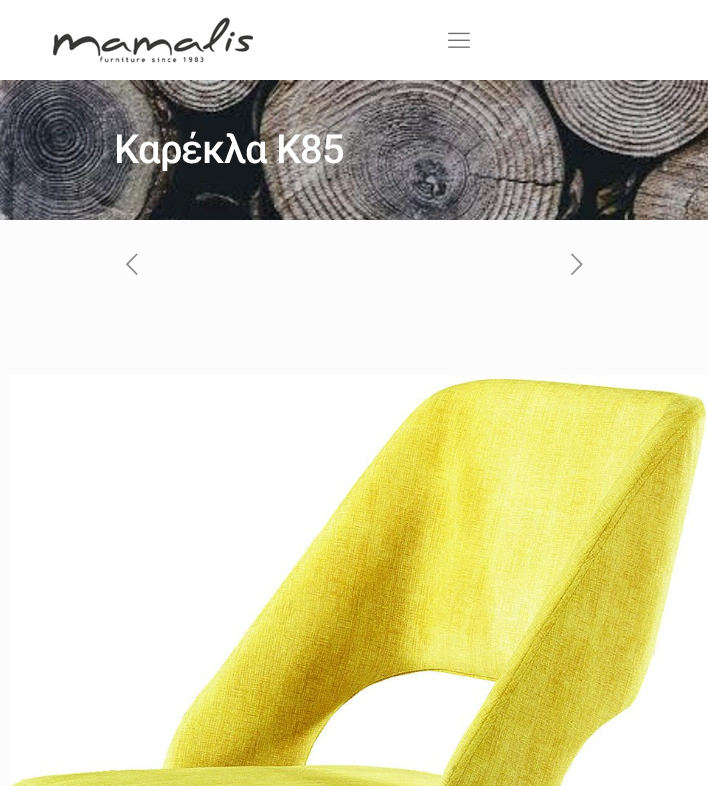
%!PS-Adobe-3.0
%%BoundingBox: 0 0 708 786
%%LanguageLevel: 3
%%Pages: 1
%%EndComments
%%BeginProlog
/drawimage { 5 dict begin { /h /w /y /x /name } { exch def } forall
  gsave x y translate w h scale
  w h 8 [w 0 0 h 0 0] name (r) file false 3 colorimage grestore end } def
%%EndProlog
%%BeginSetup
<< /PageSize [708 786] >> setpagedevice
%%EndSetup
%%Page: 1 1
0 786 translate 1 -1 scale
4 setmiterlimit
0.988 setgray
0 0 708 786 rectfill
1 setgray
0 0 708 80 rectfill
(images/1.raw) 53 17 200 46 drawimage
(images/2.raw) 448 32 22 16 drawimage
(images/3.raw) 0 80 708 140 drawimage
(images/4.raw) 126 253 12 22 drawimage
(images/5.raw) 571 253 12 22 drawimage
(images/6.raw) 9 375 699 411 drawimage
/Roboto-Medium [40 0 0 -40 0 0] selectfont
114 163 moveto -1 0 (Καρέκλα Κ85) ashow
showpage
%%EOF
